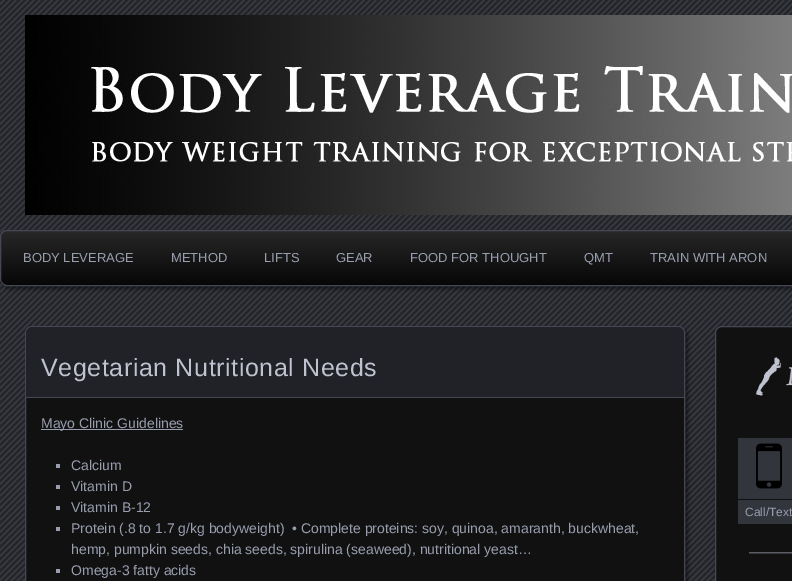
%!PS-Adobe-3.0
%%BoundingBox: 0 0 792 581
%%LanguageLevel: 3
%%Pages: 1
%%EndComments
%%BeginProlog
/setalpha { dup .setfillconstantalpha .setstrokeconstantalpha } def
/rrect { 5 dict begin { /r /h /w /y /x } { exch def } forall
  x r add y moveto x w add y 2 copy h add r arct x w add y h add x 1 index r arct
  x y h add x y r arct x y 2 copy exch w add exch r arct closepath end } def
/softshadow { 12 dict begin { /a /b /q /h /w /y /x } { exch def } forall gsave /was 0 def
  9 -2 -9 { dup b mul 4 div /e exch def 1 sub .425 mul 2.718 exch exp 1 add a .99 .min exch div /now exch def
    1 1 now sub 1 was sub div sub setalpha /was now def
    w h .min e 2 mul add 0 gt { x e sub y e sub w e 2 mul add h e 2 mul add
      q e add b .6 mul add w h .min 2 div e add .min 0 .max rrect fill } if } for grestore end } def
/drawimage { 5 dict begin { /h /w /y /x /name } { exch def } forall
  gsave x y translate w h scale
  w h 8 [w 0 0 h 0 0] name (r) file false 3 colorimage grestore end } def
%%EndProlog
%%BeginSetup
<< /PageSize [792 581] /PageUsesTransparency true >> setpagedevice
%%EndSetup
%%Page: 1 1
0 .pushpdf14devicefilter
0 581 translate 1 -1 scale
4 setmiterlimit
0.125 0.133 0.157 setrgbcolor
0 0 792 581 rectfill
(images/1.raw) 0 0 792 581 drawimage
(images/2.raw) 25 15 767 200 drawimage
0 setgray
3 233 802 56 7 2 0.45 softshadow
gsave
0 230 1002 56 7 rrect clip newpath
gsave newpath 0 231 moveto 792 231 lineto 792 285 lineto 0 285 lineto closepath clip newpath
<< /ShadingType 2 /ColorSpace /DeviceRGB /Coords [501 231 501 285] /Extend [true true] /Function << /FunctionType 3 /Domain [0 1] /Functions [<< /FunctionType 2 /Domain [0 1] /C0 [0.153 0.153 0.153] /C1 [0.153 0.153 0.153] /N 1 >> << /FunctionType 2 /Domain [0 1] /C0 [0.153 0.153 0.153] /C1 [0.027 0.027 0.027] /N 1 >>] /Bounds [0.01] /Encode [0 1 0 1] >> >> shfill grestore
grestore
0.267 0.282 0.333 setrgbcolor
0.5 230.5 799 55 6.5 rrect stroke
0 setgray
28 329 660 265 7 2 0.45 softshadow
0.067 setgray
25.5 326.5 659 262 6.5 rrect gsave fill grestore
0.267 0.282 0.333 setrgbcolor
stroke
0.125 0.133 0.157 setrgbcolor
newpath 33 327 moveto 677 327 lineto 681 327 684 330 684 334 curveto 684 398 lineto 26 398 lineto 26 334 lineto 26 330 29 327 33 327 curveto closepath fill
0.267 0.282 0.333 setrgbcolor
26 397 658 1 rectfill
0.596 0.62 0.682 setrgbcolor
41 429 142 1 rectfill
56 464 4 4 rectfill
56 485 4 4 rectfill
56 506 4 4 rectfill
56 527 4 4 rectfill
56 569 4 4 rectfill
0 setgray
717 328 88 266 7 2 0.45 softshadow
0.067 setgray
715.5 326.5 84 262 6.5 rrect gsave fill grestore
0.267 0.282 0.333 setrgbcolor
stroke
(images/3.raw) 755 357 37 39 drawimage
0.2 0.208 0.239 setrgbcolor
738 438 54 61 rectfill
(images/4.raw) 756 443 26 46 drawimage
738 500 54 24 rectfill
/LiberationSans-Regular [13 0 0 -13 0 0] selectfont
0.596 0.62 0.682 setrgbcolor
23 262 moveto (BODY LEVERAGE) show
171 262 moveto (METHOD) show
264 262 moveto (LIFTS) show
336 262 moveto (GEAR) show
410 262 moveto (FOOD FOR THOUGHT) show
584 262 moveto (QMT) show
650 262 moveto (TRAIN WITH ARON) show
/LiberationSans-Regular [25 0 0 -25 0 0] selectfont
0.749 0.765 0.812 setrgbcolor
41 376 moveto 0.6 0 (Vegetarian Nutritional Needs) ashow
/LiberationSans-Regular [14 0 0 -14 0 0] selectfont
0.596 0.62 0.682 setrgbcolor
41 428 moveto (Mayo Clinic Guidelines) show
71 470 moveto (Calcium) show
71 491 moveto (Vitamin D) show
71 512 moveto (Vitamin B-12) show
71 533 moveto (Protein \(.8 to 1.7 g/kg bodyweight\)  • Complete proteins: soy, quinoa, amaranth, buckwheat,) show
71 554 moveto (hemp, pumpkin seeds, chia seeds, spirulina \(seaweed\), nutritional yeast…) show
71 575 moveto (Omega-3 fatty acids) show
/LiberationSans-Regular [12 0 0 -12 0 0] selectfont
745 516 moveto (Call/Text) show
749 556 moveto (————) show
.poppdf14devicefilter showpage
%%EOF
